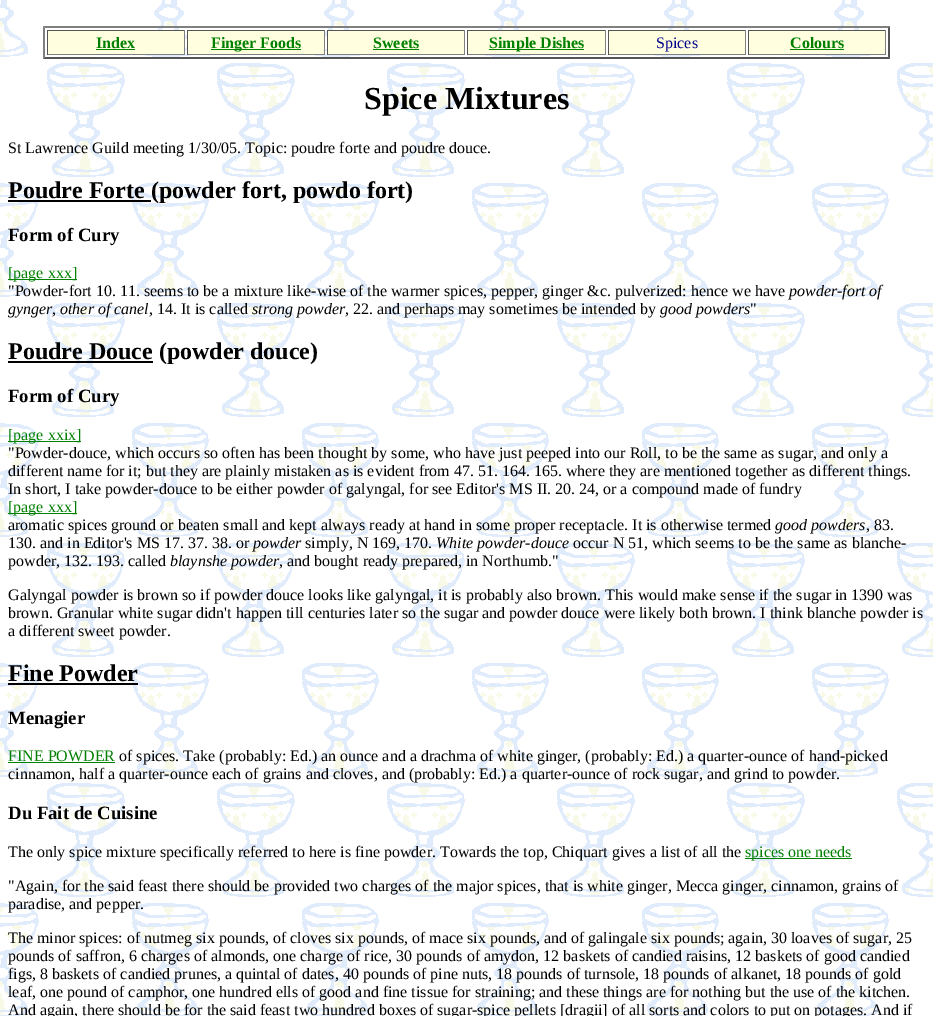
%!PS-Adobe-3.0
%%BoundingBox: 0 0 933 1016
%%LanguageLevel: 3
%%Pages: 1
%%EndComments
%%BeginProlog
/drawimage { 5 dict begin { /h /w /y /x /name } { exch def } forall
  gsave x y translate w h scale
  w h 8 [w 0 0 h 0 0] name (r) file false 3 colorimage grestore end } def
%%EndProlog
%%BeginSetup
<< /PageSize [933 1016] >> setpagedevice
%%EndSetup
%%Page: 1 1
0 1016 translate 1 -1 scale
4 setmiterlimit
1 setgray
0 0 933 1016 rectfill
(images/1.raw) 0 0 933 1016 drawimage
0.502 setgray
newpath 43 26 moveto 890 26 lineto 888 28 lineto 45 28 lineto closepath fill
0.333 setgray
newpath 890 26 moveto 890 59 lineto 888 57 lineto 888 28 lineto closepath fill
newpath 890 59 moveto 43 59 lineto 45 57 lineto 888 57 lineto closepath fill
0.502 setgray
newpath 43 59 moveto 43 26 lineto 45 28 lineto 45 57 lineto closepath fill
1 1 0.878 setrgbcolor
48 31 136 23 rectfill
0.333 setgray
47 30 138 1 rectfill
0.502 setgray
184 30 1 25 rectfill
47 54 138 1 rectfill
0.333 setgray
47 30 1 25 rectfill
0 0.502 0 setrgbcolor
96 49 39 1 rectfill
1 1 0.878 setrgbcolor
188 31 136 23 rectfill
0.333 setgray
187 30 138 1 rectfill
0.502 setgray
324 30 1 25 rectfill
187 54 138 1 rectfill
0.333 setgray
187 30 1 25 rectfill
0 0.502 0 setrgbcolor
211 49 90 1 rectfill
1 1 0.878 setrgbcolor
328 31 136 23 rectfill
0.333 setgray
327 30 138 1 rectfill
0.502 setgray
464 30 1 25 rectfill
327 54 138 1 rectfill
0.333 setgray
327 30 1 25 rectfill
0 0.502 0 setrgbcolor
373 49 46 1 rectfill
1 1 0.878 setrgbcolor
468 31 137 23 rectfill
0.333 setgray
467 30 139 1 rectfill
0.502 setgray
605 30 1 25 rectfill
467 54 139 1 rectfill
0.333 setgray
467 30 1 25 rectfill
0 0.502 0 setrgbcolor
489 49 95 1 rectfill
1 1 0.878 setrgbcolor
609 31 136 23 rectfill
0.333 setgray
608 30 138 1 rectfill
0.502 setgray
745 30 1 25 rectfill
608 54 138 1 rectfill
0.333 setgray
608 30 1 25 rectfill
1 1 0.878 setrgbcolor
749 31 136 23 rectfill
0.333 setgray
748 30 138 1 rectfill
0.502 setgray
885 30 1 25 rectfill
748 54 138 1 rectfill
0.333 setgray
748 30 1 25 rectfill
0 0.502 0 setrgbcolor
790 49 54 1 rectfill
0 setgray
8 200 143 2 rectfill
0 0.502 0 setrgbcolor
8 279 69 1 rectfill
0 setgray
8 361 145 2 rectfill
0 0.502 0 setrgbcolor
8 441 73 1 rectfill
8 513 69 1 rectfill
0 setgray
8 683 130 2 rectfill
0 0.502 0 setrgbcolor
8 762 107 1 rectfill
745 858 107 1 rectfill
/LiberationSerif-Bold [16 0 0 -16 0 0] selectfont
96 48 moveto (Index) show
211 48 moveto (Finger Foods) show
373 48 moveto (Sweets) show
489 48 moveto (Simple Dishes) show
/LiberationSerif-Regular [16 0 0 -16 0 0] selectfont
0 0 0.545 setrgbcolor
656 48 moveto (Spices) show
/LiberationSerif-Bold [16 0 0 -16 0 0] selectfont
0 0.502 0 setrgbcolor
790 48 moveto (Colours) show
/LiberationSerif-Bold [32 0 0 -32 0 0] selectfont
0 setgray
364 109 moveto (Spice Mixtures) show
/LiberationSerif-Regular [16 0 0 -16 0 0] selectfont
8 153 moveto (St Lawrence Guild meeting 1/30/05. Topic: poudre forte and poudre douce.) show
/LiberationSerif-Bold [24 0 0 -24 0 0] selectfont
8 198 moveto (Poudre Forte \(powder fort, powdo fort\)) show
/LiberationSerif-Bold [18.75 0 0 -18.75 0 0] selectfont
8 241 moveto (Form of Cury) show
/LiberationSerif-Regular [16 0 0 -16 0 0] selectfont
0 0.502 0 setrgbcolor
8 278 moveto ([page xxx]) show
0 setgray
8 296 moveto ("Powder-fort 10. 11. seems to be a mixture like-wise of the warmer spices, pepper, ginger &c. pulverized: hence we have) show
/LiberationSerif-Italic [16 0 0 -16 0 0] selectfont
789 296 moveto (powder-fort of) show
60 314 moveto (other of canel) show
/LiberationSerif-Regular [16 0 0 -16 0 0] selectfont
149 314 moveto (, 14. It is called) show
/LiberationSerif-Italic [16 0 0 -16 0 0] selectfont
252 314 moveto (strong powder) show
/LiberationSerif-Regular [16 0 0 -16 0 0] selectfont
345 314 moveto (, 22. and perhaps may sometimes be intended by) show
/LiberationSerif-Italic [16 0 0 -16 0 0] selectfont
660 314 moveto (good powders) show
/LiberationSerif-Regular [16 0 0 -16 0 0] selectfont
750 314 moveto (") show
/LiberationSerif-Italic [16 0 0 -16 0 0] selectfont
8 314 moveto (gynger) show
/LiberationSerif-Regular [16 0 0 -16 0 0] selectfont
52 314 moveto (,) show
/LiberationSerif-Bold [24 0 0 -24 0 0] selectfont
8 359 moveto (Poudre Douce \(powder douce\)) show
/LiberationSerif-Bold [18.75 0 0 -18.75 0 0] selectfont
8 402 moveto (Form of Cury) show
/LiberationSerif-Regular [16 0 0 -16 0 0] selectfont
0 0.502 0 setrgbcolor
8 440 moveto ([page xxix]) show
0 setgray
8 458 moveto ("Powder-douce, which occurs so often has been thought by some, who have just peeped into our Roll, to be the same as sugar, and only a) show
8 476 moveto (different name for it; but they are plainly mistaken as is evident from 47. 51. 164. 165. where they are mentioned together as different things.) show
8 494 moveto (In short, I take powder-douce to be either powder of galyngal, for see Editor's MS II. 20. 24, or a compound made of fundry) show
0 0.502 0 setrgbcolor
8 512 moveto ([page xxx]) show
0 setgray
8 530 moveto (aromatic spices ground or beaten small and kept always ready at hand in some proper receptacle. It is otherwise termed) show
/LiberationSerif-Italic [16 0 0 -16 0 0] selectfont
775 530 moveto (good powders) show
/LiberationSerif-Regular [16 0 0 -16 0 0] selectfont
866 530 moveto (, 83.) show
8 548 moveto (130. and in Editor's MS 17. 37. 38. or) show
/LiberationSerif-Italic [16 0 0 -16 0 0] selectfont
253 548 moveto (powder) show
/LiberationSerif-Regular [16 0 0 -16 0 0] selectfont
305 548 moveto (simply, N 169, 170.) show
/LiberationSerif-Italic [16 0 0 -16 0 0] selectfont
436 548 moveto (White powder-douce) show
/LiberationSerif-Regular [16 0 0 -16 0 0] selectfont
573 548 moveto (occur N 51, which seems to be the same as blanche-) show
8 566 moveto (powder, 132. 193. called) show
/LiberationSerif-Italic [16 0 0 -16 0 0] selectfont
170 566 moveto (blaynshe powder) show
/LiberationSerif-Regular [16 0 0 -16 0 0] selectfont
279 566 moveto (, and bought ready prepared, in Northumb.") show
8 600 moveto (Galyngal powder is brown so if powder douce looks like galyngal, it is probably also brown. This would make sense if the sugar in 1390 was) show
8 618 moveto (brown. Granular white sugar didn't happen till centuries later so the sugar and powder douce were likely both brown. I think blanche powder is) show
8 636 moveto (a different sweet powder.) show
/LiberationSerif-Bold [24 0 0 -24 0 0] selectfont
8 681 moveto (Fine Powder) show
/LiberationSerif-Bold [18.75 0 0 -18.75 0 0] selectfont
8 724 moveto (Menagier) show
/LiberationSerif-Regular [16 0 0 -16 0 0] selectfont
0 0.502 0 setrgbcolor
8 761 moveto (FINE POWDER) show
0 setgray
119 761 moveto (of spices. Take \(probably: Ed.\) an ounce and a drachma of white ginger, \(probably: Ed.\) a quarter-ounce of hand-picked) show
8 779 moveto (cinnamon, half a quarter-ounce each of grains and cloves, and \(probably: Ed.\) a quarter-ounce of rock sugar, and grind to powder.) show
/LiberationSerif-Bold [18.75 0 0 -18.75 0 0] selectfont
8 819 moveto (Du Fait de Cuisine) show
/LiberationSerif-Regular [16 0 0 -16 0 0] selectfont
8 857 moveto (The only spice mixture specifically referred to here is fine powder. Towards the top, Chiquart gives a list of all the) show
0 0.502 0 setrgbcolor
745 857 moveto (spices one needs) show
0 setgray
8 891 moveto ("Again, for the said feast there should be provided two charges of the major spices, that is white ginger, Mecca ginger, cinnamon, grains of) show
8 909 moveto (paradise, and pepper.) show
8 943 moveto (The minor spices: of nutmeg six pounds, of cloves six pounds, of mace six pounds, and of galingale six pounds; again, 30 loaves of sugar, 25) show
8 961 moveto (pounds of saffron, 6 charges of almonds, one charge of rice, 30 pounds of amydon, 12 baskets of candied raisins, 12 baskets of good candied) show
8 979 moveto (figs, 8 baskets of candied prunes, a quintal of dates, 40 pounds of pine nuts, 18 pounds of turnsole, 18 pounds of alkanet, 18 pounds of gold) show
8 997 moveto (leaf, one pound of camphor, one hundred ells of good and fine tissue for straining; and these things are for nothing but the use of the kitchen.) show
8 1015 moveto (And again, there should be for the said feast two hundred boxes of sugar-spice pellets [dragii] of all sorts and colors to put on potages. And if) show
showpage
%%EOF
